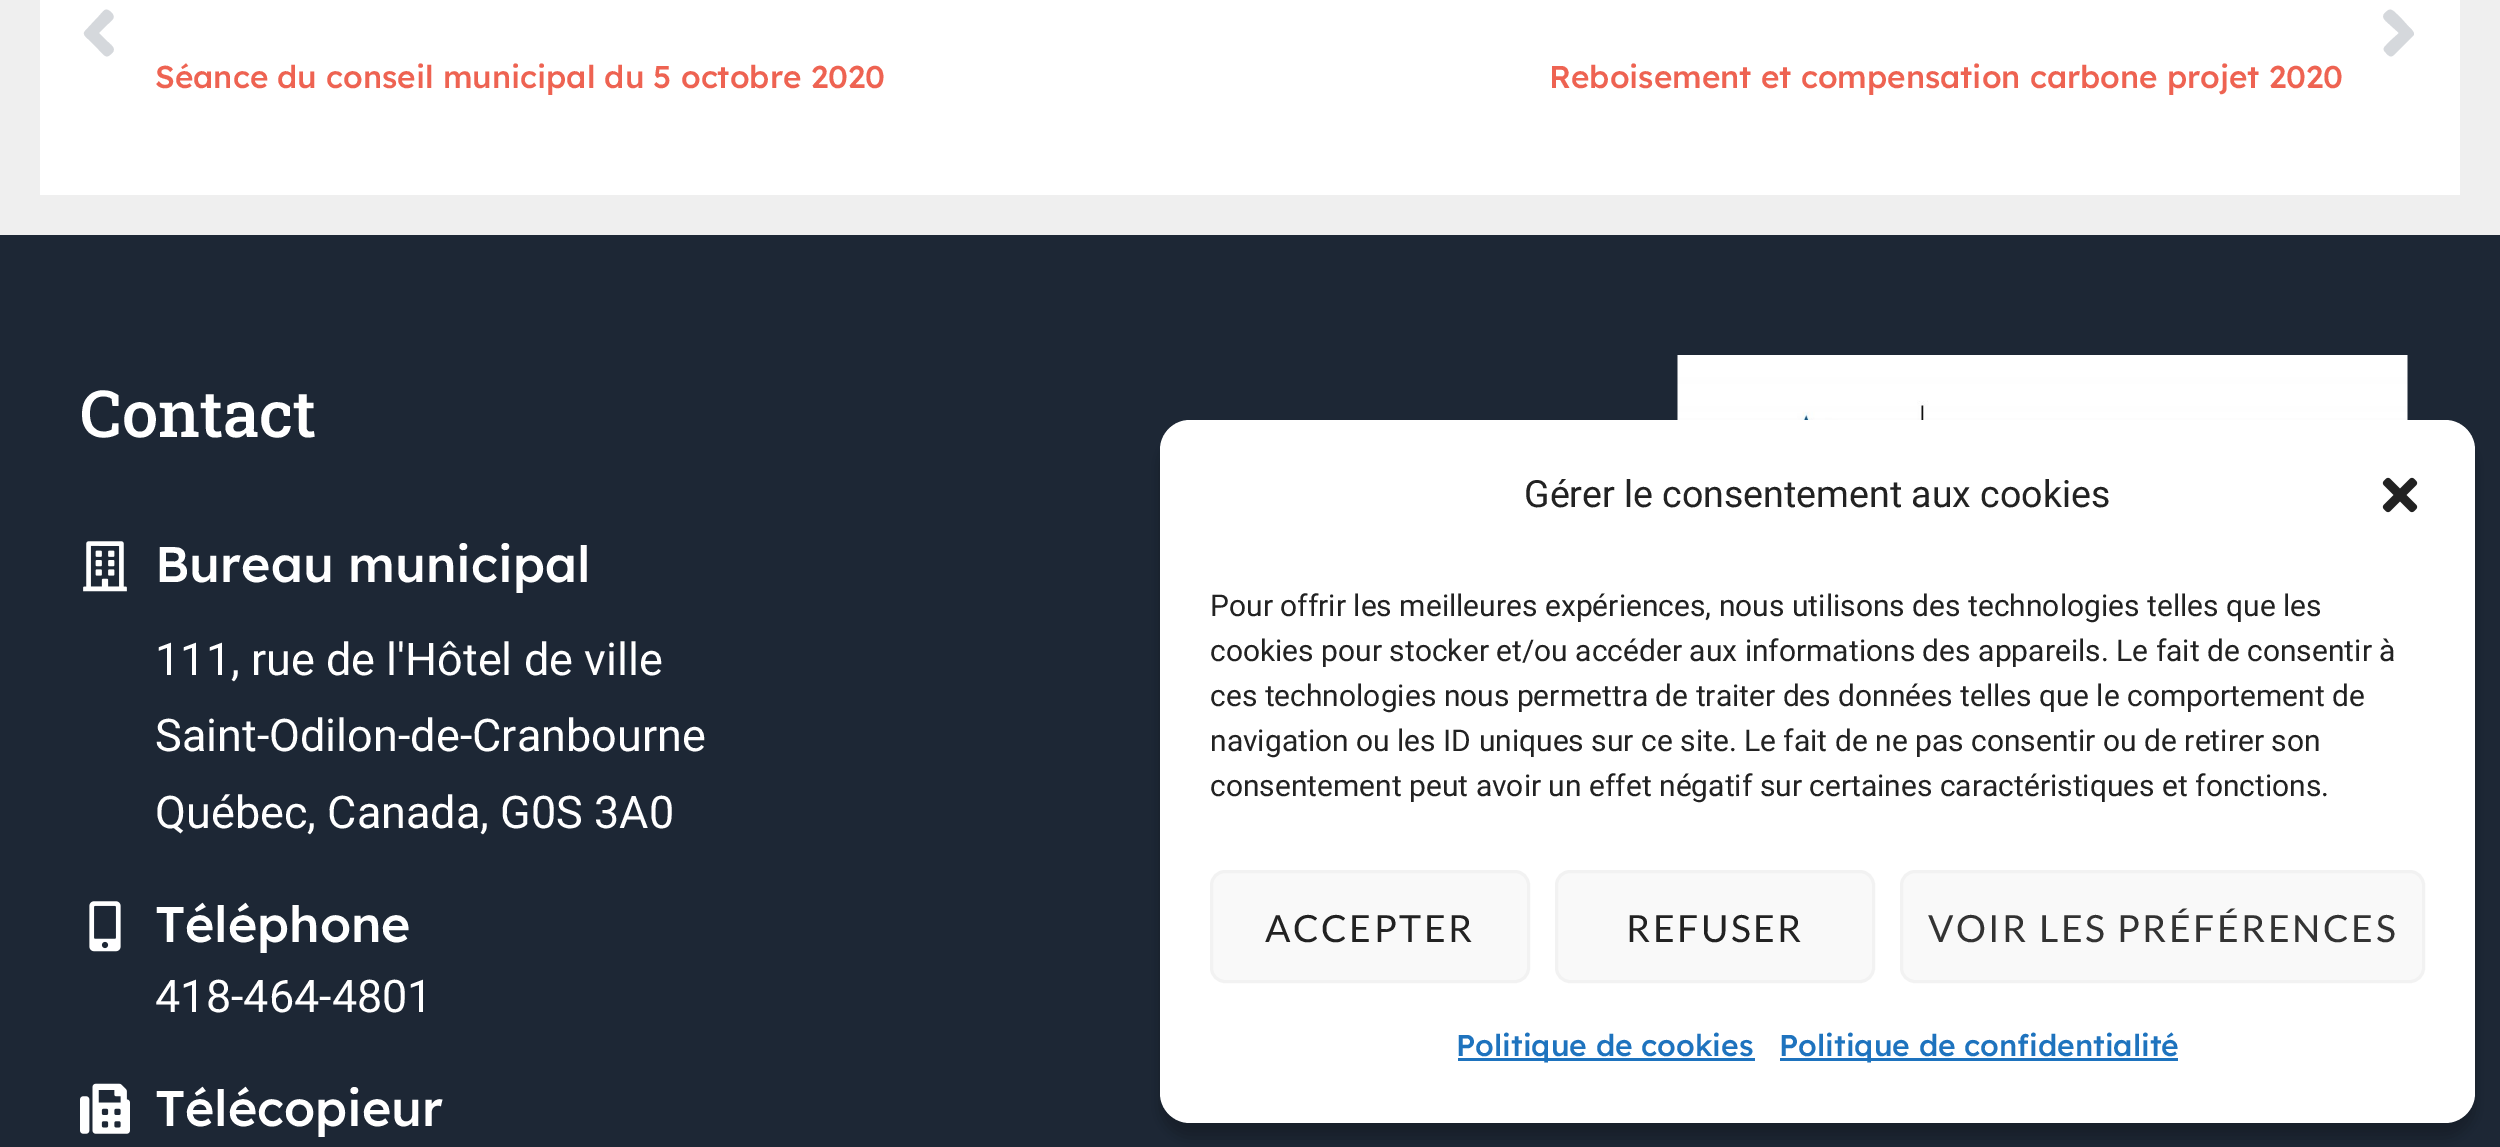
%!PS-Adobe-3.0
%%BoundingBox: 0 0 2500 1147
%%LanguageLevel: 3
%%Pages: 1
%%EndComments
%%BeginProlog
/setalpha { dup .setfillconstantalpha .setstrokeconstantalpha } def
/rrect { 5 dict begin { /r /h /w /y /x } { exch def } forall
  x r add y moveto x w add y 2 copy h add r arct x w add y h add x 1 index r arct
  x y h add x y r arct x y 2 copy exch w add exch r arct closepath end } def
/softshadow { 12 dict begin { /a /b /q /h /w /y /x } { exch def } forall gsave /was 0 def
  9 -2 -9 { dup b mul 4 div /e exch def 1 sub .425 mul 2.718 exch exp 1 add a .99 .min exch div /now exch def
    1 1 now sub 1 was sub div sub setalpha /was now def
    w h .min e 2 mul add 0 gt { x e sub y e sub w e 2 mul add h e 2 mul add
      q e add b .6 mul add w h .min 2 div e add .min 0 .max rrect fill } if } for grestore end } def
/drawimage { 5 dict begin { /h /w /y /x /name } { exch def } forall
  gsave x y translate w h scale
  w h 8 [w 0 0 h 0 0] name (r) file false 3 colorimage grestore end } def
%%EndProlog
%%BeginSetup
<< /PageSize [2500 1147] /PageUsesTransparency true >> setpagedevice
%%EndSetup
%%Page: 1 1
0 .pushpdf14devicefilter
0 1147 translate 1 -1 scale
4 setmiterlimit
0.937 setgray
0 0 2500 1147 rectfill
1 setgray
40 0 2420 195 rectfill
0.835 0.847 0.863 setrgbcolor
newpath 85 31 moveto 98 17 lineto 104 11 105 6 112 13 curveto 116 18 112 20 108 24 curveto 99 33 lineto 108 42 lineto 110 44 116 48 113 52 curveto 106 60 105 56 98 49 curveto 88 39 lineto 86 37 82 34 85 31 curveto closepath fill
newpath 2413 36 moveto 2400 49 lineto 2393 55 2392 60 2386 53 curveto 2381 48 2385 47 2389 42 curveto 2399 33 lineto 2389 24 lineto 2387 22 2381 18 2384 14 curveto 2391 6 2392 10 2400 17 curveto 2409 27 lineto 2411 29 2416 33 2413 36 curveto closepath fill
0.114 0.153 0.208 setrgbcolor
0 235 2500 912 rectfill
(images/1.raw) 83 541 44 51 drawimage
(images/2.raw) 89 901 32 51 drawimage
(images/3.raw) 80 1083 50 51 drawimage
(images/4.raw) 1677 355 731 65 drawimage
0 setgray
1160 435 1315 703 30 7.5 0.23 softshadow
1 setgray
1160 420 1315 703 30 rrect fill
(images/5.raw) 2382 477 36 36 drawimage
0.976 setgray
1211.5 871.5 317 110 13.5 rrect gsave fill grestore
0.949 setgray
3 setlinewidth
stroke
0.976 setgray
1556.5 871.5 317 110 13.5 rrect gsave fill grestore
0.949 setgray
stroke
0.976 setgray
1901.5 871.5 522 110 13.5 rrect gsave fill grestore
0.949 setgray
stroke
0.118 0.451 0.745 setrgbcolor
1458 1058 297 3 rectfill
1780 1058 398 3 rectfill
/LexendDeca-Medium [31.5 0 0 -31.5 0 0] selectfont
0.933 0.388 0.322 setrgbcolor
155 88 moveto (Séance du conseil municipal du 5 octobre 2020) show
1549 88 moveto (Reboisement et compensation carbone projet 2020) show
/RobotoSlab-Medium [65 0 0 -65 0 0] selectfont
1 setgray
80 437 moveto (Contact) show
/LexendDeca-Medium [50 0 0 -50 0 0] selectfont
155 582 moveto (Bureau municipal) show
/Roboto-Regular [45 0 0 -45 0 0] selectfont
155 675 moveto (111, rue de l'Hôtel de ville) show
155 751 moveto (Saint-Odilon-de-Cranbourne) show
155 828 moveto (Québec, Canada, G0S 3A0) show
/LexendDeca-Medium [50 0 0 -50 0 0] selectfont
155 942 moveto (Téléphone) show
/Roboto-Regular [45 0 0 -45 0 0] selectfont
155 1012 moveto (418-464-4801) show
/LexendDeca-Medium [50 0 0 -50 0 0] selectfont
155 1126 moveto (Télécopieur) show
/Roboto-Regular [37.5 0 0 -37.5 0 0] selectfont
0.133 setgray
1524 507 moveto (Gérer le consentement aux cookies) show
/Roboto-Regular [30 0 0 -30 0 0] selectfont
1210 616 moveto (Pour offrir les meilleures expériences, nous utilisons des technologies telles que les) show
1210 661 moveto (cookies pour stocker et/ou accéder aux informations des appareils. Le fait de consentir à) show
1210 706 moveto (ces technologies nous permettra de traiter des données telles que le comportement de) show
1210 751 moveto (navigation ou les ID uniques sur ce site. Le fait de ne pas consentir ou de retirer son) show
1210 796 moveto (consentement peut avoir un effet négatif sur certaines caractéristiques et fonctions.) show
/Lato-Regular [37.5 0 0 -37.5 0 0] selectfont
1265 942 moveto 2.5 0 (ACCEPTER) ashow
1626 942 moveto 2.5 0 (REFUSER) ashow
0.2 setgray
1928 942 moveto 2.5 0 (VOIR LES PRÉFÉRENCES) ashow
/LexendDeca-Medium [30 0 0 -30 0 0] selectfont
0.118 0.451 0.745 setrgbcolor
1456 1056 moveto (Politique de cookies) show
1779 1056 moveto (Politique de confidentialité) show
.poppdf14devicefilter showpage
%%EOF
